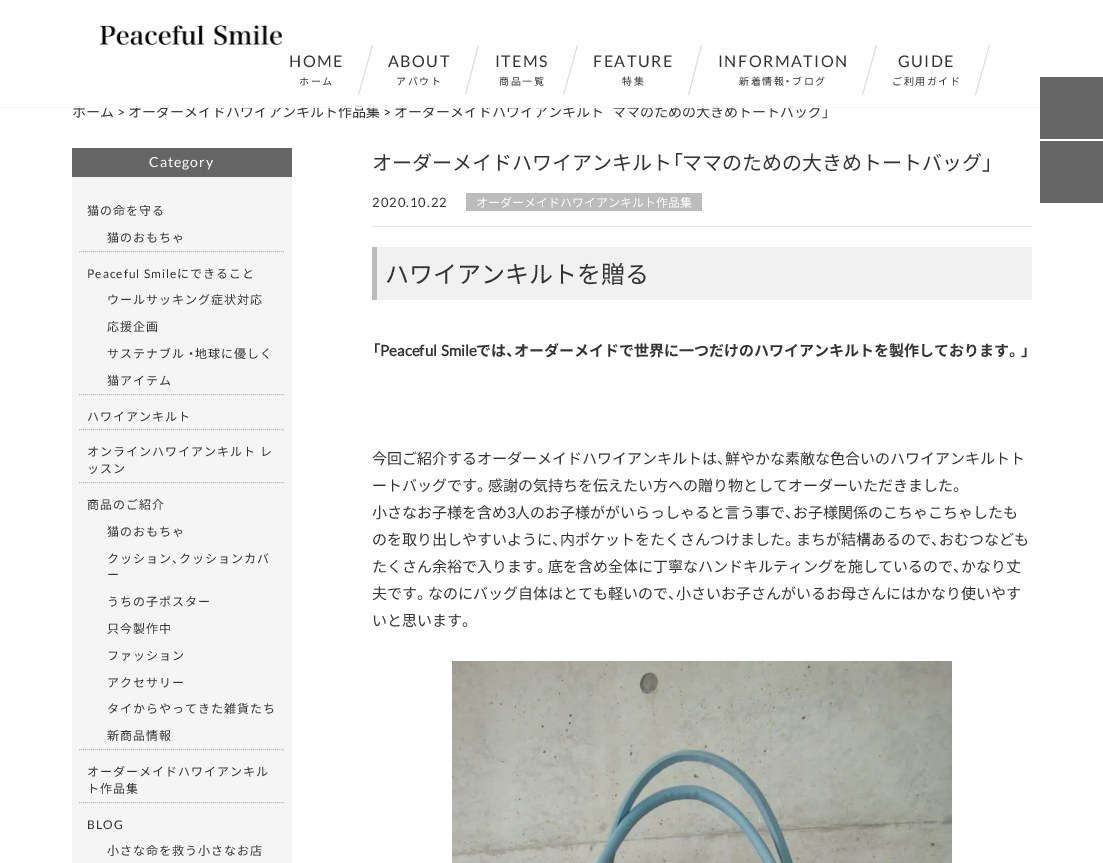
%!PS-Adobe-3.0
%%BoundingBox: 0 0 1103 863
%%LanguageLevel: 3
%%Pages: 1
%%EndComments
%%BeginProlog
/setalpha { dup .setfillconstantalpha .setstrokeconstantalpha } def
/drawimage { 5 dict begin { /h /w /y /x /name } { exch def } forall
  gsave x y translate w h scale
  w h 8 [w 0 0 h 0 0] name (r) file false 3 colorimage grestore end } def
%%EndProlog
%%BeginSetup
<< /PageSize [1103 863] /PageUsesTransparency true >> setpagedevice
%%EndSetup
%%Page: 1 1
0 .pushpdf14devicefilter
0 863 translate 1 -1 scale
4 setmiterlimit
1 setgray
0 0 1103 863 rectfill
(images/1.raw) 100 25 182 20 drawimage
0.867 setgray
newpath 372 45 moveto 373 45 lineto 359 95 lineto 358 95 lineto closepath fill
newpath 478 45 moveto 479 45 lineto 466 95 lineto 465 95 lineto closepath fill
newpath 577 45 moveto 578 45 lineto 564 95 lineto 563 95 lineto closepath fill
newpath 701 45 moveto 702 45 lineto 689 95 lineto 688 95 lineto closepath fill
newpath 876 45 moveto 877 45 lineto 863 95 lineto 862 95 lineto closepath fill
newpath 989 45 moveto 990 45 lineto 976 95 lineto 975 95 lineto closepath fill
0.961 setgray
72 177 220 686 rectfill
0.4 setgray
72 148 220 29 rectfill
0.749 0.729 0.729 setrgbcolor
[1 1] 0 setdash
newpath 79 251.5 moveto 285 251.5 lineto stroke
newpath 79 394.5 moveto 285 394.5 lineto stroke
newpath 79 429.5 moveto 285 429.5 lineto stroke
newpath 79 482.5 moveto 285 482.5 lineto stroke
newpath 79 749.5 moveto 285 749.5 lineto stroke
newpath 79 802.5 moveto 285 802.5 lineto stroke
0.902 setgray
372 226 660 1 rectfill
0.737 setgray
466 193 236 18 rectfill
0.945 setgray
377 247 655 53 rectfill
0.737 setgray
372 247 5 53 rectfill
(images/2.raw) 452 661 500 202 drawimage
0.4 setgray
1040 77 63 62 rectfill
1040 141 63 62 rectfill
/Lato-Regular [16 0 0 -16 0 0] selectfont
0.2 setgray
289 67 moveto 1.5 0 (HOME) ashow
/NotoSansJP-Regular [10 0 0 -10 0 0] selectfont
299 85 moveto 1.5 0 (ホーム) ashow
/Lato-Regular [16 0 0 -16 0 0] selectfont
388 67 moveto 1.5 0 (ABOUT) ashow
/NotoSansJP-Regular [10 0 0 -10 0 0] selectfont
396 85 moveto 1.5 0 (アバウト) ashow
/Lato-Regular [16 0 0 -16 0 0] selectfont
495 67 moveto 1.5 0 (ITEMS) ashow
/NotoSansJP-Regular [10 0 0 -10 0 0] selectfont
499 85 moveto 1.5 0 (商品一覧) ashow
/Lato-Regular [16 0 0 -16 0 0] selectfont
593 67 moveto 1.5 0 (FEATURE) ashow
/NotoSansJP-Regular [10 0 0 -10 0 0] selectfont
622 85 moveto 1.5 0 (特集) ashow
/Lato-Regular [16 0 0 -16 0 0] selectfont
718 67 moveto 1.5 0 (INFORMATION) ashow
/NotoSansJP-Regular [10 0 0 -10 0 0] selectfont
739 85 moveto 1.5 0 (新着情報) ashow
/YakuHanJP-Regular [10 0 0 -10 0 0] selectfont
785 85 moveto 1.5 0 (・) ashow
/NotoSansJP-Regular [10 0 0 -10 0 0] selectfont
792 85 moveto 1.5 0 (ブログ) ashow
/Lato-Regular [16 0 0 -16 0 0] selectfont
898 67 moveto 1.5 0 (GUIDE) ashow
/NotoSansJP-Regular [10 0 0 -10 0 0] selectfont
892 85 moveto 1.5 0 (ご利用ガイド) ashow
/NotoSansJP-Regular [14 0 0 -14 0 0] selectfont
72 117 moveto (ホーム) show
/Lato-Regular [14 0 0 -14 0 0] selectfont
117 117 moveto (>) show
/NotoSansJP-Regular [14 0 0 -14 0 0] selectfont
128 117 moveto (オーダーメイドハワイアンキルト作品集) show
/Lato-Regular [14 0 0 -14 0 0] selectfont
383 117 moveto (>) show
/NotoSansJP-Regular [14 0 0 -14 0 0] selectfont
394 117 moveto (オーダーメイドハワイアンキルト) show
612 117 moveto (ママのための大きめトートバッグ) show
0.969 setgray
0 107 1040 1 rectfill
0.75 setalpha
1 setgray
78 105 743 2 rectfill
/YakuHanJP-Regular [14 0 0 -14 0 0] selectfont
1 setalpha
0.2 setgray
822 117 moveto (」) show
/Lato-Regular [14 0 0 -14 0 0] selectfont
1 setgray
149 167 moveto 1 0 (Category) ashow
/NotoSansJP-Regular [12 0 0 -12 0 0] selectfont
0.2 setgray
87 215 moveto 1 0 (猫の命を守る) ashow
107 242 moveto 1 0 (猫のおもちゃ) ashow
/Lato-Regular [12 0 0 -12 0 0] selectfont
87 278 moveto 1 0 (Peaceful Smile) ashow
/NotoSansJP-Regular [12 0 0 -12 0 0] selectfont
177 278 moveto 1 0 (にできること) ashow
107 304 moveto 1 0 (ウールサッキング症状対応) ashow
107 331 moveto 1 0 (応援企画) ashow
107 358 moveto 1 0 (サステナブル) ashow
/YakuHanJP-Regular [12 0 0 -12 0 0] selectfont
188 358 moveto 1 0 (・) ashow
/NotoSansJP-Regular [12 0 0 -12 0 0] selectfont
195 358 moveto 1 0 (地球に優しく) ashow
107 385 moveto 1 0 (猫アイテム) ashow
87 421 moveto 1 0 (ハワイアンキルト) ashow
87 456 moveto 1 0 (オンラインハワイアンキルト レ) ashow
87 473 moveto 1 0 (ッスン) ashow
87 509 moveto 1 0 (商品のご紹介) ashow
107 536 moveto 1 0 (猫のおもちゃ) ashow
107 563 moveto 1 0 (クッション) ashow
/YakuHanJP-Regular [12 0 0 -12 0 0] selectfont
172 563 moveto 1 0 (、) ashow
/NotoSansJP-Regular [12 0 0 -12 0 0] selectfont
179 563 moveto 1 0 (クッションカバ) ashow
107 579 moveto 1 0 (ー) ashow
107 606 moveto 1 0 (うちの子ポスター) ashow
107 633 moveto 1 0 (只今製作中) ashow
107 660 moveto 1 0 (ファッション) ashow
107 687 moveto 1 0 (アクセサリー) ashow
107 713 moveto 1 0 (タイからやってきた雑貨たち) ashow
107 740 moveto 1 0 (新商品情報) ashow
87 776 moveto 1 0 (オーダーメイドハワイアンキル) ashow
87 793 moveto 1 0 (ト作品集) ashow
/Lato-Regular [12 0 0 -12 0 0] selectfont
87 829 moveto 1 0 (BLOG) ashow
/NotoSansJP-Regular [12 0 0 -12 0 0] selectfont
107 855 moveto 1 0 (小さな命を救う小さなお店) ashow
/NotoSansJP-Regular [20 0 0 -20 0 0] selectfont
372 170 moveto (オーダーメイドハワイアンキルト) show
/YakuHanJP-Regular [20 0 0 -20 0 0] selectfont
672 170 moveto (「) show
/NotoSansJP-Regular [20 0 0 -20 0 0] selectfont
682 170 moveto (ママのための大きめトートバッグ) show
/YakuHanJP-Regular [20 0 0 -20 0 0] selectfont
982 170 moveto (」) show
/Lato-Regular [13 0 0 -13 0 0] selectfont
372 207 moveto 1 0 (2020.10.22) ashow
/NotoSansJP-Regular [12 0 0 -12 0 0] selectfont
1 setgray
476 207 moveto (オーダーメイドハワイアンキルト作品集) show
/NotoSansJP-Regular [24 0 0 -24 0 0] selectfont
0.2 setgray
385 283 moveto (ハワイアンキルトを贈る) show
/YakuHanJP-Bold [15 0 0 -15 0 0] selectfont
372 356 moveto (「) show
/Lato-Bold [15 0 0 -15 0 0] selectfont
380 356 moveto 1 0 32 (Peaceful Smile) widthshow
/NotoSansJP-Bold [15 0 0 -15 0 0] selectfont
476 356 moveto (では) show
/YakuHanJP-Bold [15 0 0 -15 0 0] selectfont
506 356 moveto (、) show
/NotoSansJP-Bold [15 0 0 -15 0 0] selectfont
514 356 moveto (オーダーメイドで世界に一つだけのハワイアンキルトを製作しております) show
/YakuHanJP-Bold [15 0 0 -15 0 0] selectfont
1009 356 moveto (。」) show
/NotoSansJP-Regular [15 0 0 -15 0 0] selectfont
372 464 moveto (今回ご紹介するオーダーメイドハワイアンキルトは) show
/YakuHanJP-Regular [15 0 0 -15 0 0] selectfont
717 464 moveto (、) show
/NotoSansJP-Regular [15 0 0 -15 0 0] selectfont
725 464 moveto (鮮やかな素敵な色合いのハワイアンキルトト) show
372 491 moveto (ートバッグです) show
/YakuHanJP-Regular [15 0 0 -15 0 0] selectfont
477 491 moveto (。) show
/NotoSansJP-Regular [15 0 0 -15 0 0] selectfont
488 491 moveto (感謝の気持ちを伝えたい方への贈り物としてオーダーいただきました) show
/YakuHanJP-Regular [15 0 0 -15 0 0] selectfont
953 491 moveto (。) show
/NotoSansJP-Regular [15 0 0 -15 0 0] selectfont
372 518 moveto (小さなお子様を含め) show
/Lato-Regular [15 0 0 -15 0 0] selectfont
507 518 moveto (3) show
/NotoSansJP-Regular [15 0 0 -15 0 0] selectfont
515 518 moveto (人のお子様ががいらっしゃると言う事で) show
/YakuHanJP-Regular [15 0 0 -15 0 0] selectfont
785 518 moveto (、) show
/NotoSansJP-Regular [15 0 0 -15 0 0] selectfont
793 518 moveto (お子様関係のこちゃこちゃしたも) show
372 545 moveto (のを取り出しやすいように) show
/YakuHanJP-Regular [15 0 0 -15 0 0] selectfont
552 545 moveto (、) show
/NotoSansJP-Regular [15 0 0 -15 0 0] selectfont
560 545 moveto (内ポケットをたくさんつけました) show
/YakuHanJP-Regular [15 0 0 -15 0 0] selectfont
785 545 moveto (。) show
/NotoSansJP-Regular [15 0 0 -15 0 0] selectfont
796 545 moveto (まちが結構あるので) show
/YakuHanJP-Regular [15 0 0 -15 0 0] selectfont
931 545 moveto (、) show
/NotoSansJP-Regular [15 0 0 -15 0 0] selectfont
939 545 moveto (おむつなども) show
372 572 moveto (たくさん余裕で入ります) show
/YakuHanJP-Regular [15 0 0 -15 0 0] selectfont
537 572 moveto (。) show
/NotoSansJP-Regular [15 0 0 -15 0 0] selectfont
548 572 moveto (底を含め全体に丁寧なハンドキルティングを施しているので) show
/YakuHanJP-Regular [15 0 0 -15 0 0] selectfont
953 572 moveto (、) show
/NotoSansJP-Regular [15 0 0 -15 0 0] selectfont
961 572 moveto (かなり丈) show
372 599 moveto (夫です) show
/YakuHanJP-Regular [15 0 0 -15 0 0] selectfont
417 599 moveto (。) show
/NotoSansJP-Regular [15 0 0 -15 0 0] selectfont
428 599 moveto (なのにバッグ自体はとても軽いので) show
/YakuHanJP-Regular [15 0 0 -15 0 0] selectfont
668 599 moveto (、) show
/NotoSansJP-Regular [15 0 0 -15 0 0] selectfont
676 599 moveto (小さいお子さんがいるお母さんにはかなり使いやす) show
372 626 moveto (いと思います) show
/YakuHanJP-Regular [15 0 0 -15 0 0] selectfont
462 626 moveto (。) show
.poppdf14devicefilter showpage
%%EOF
